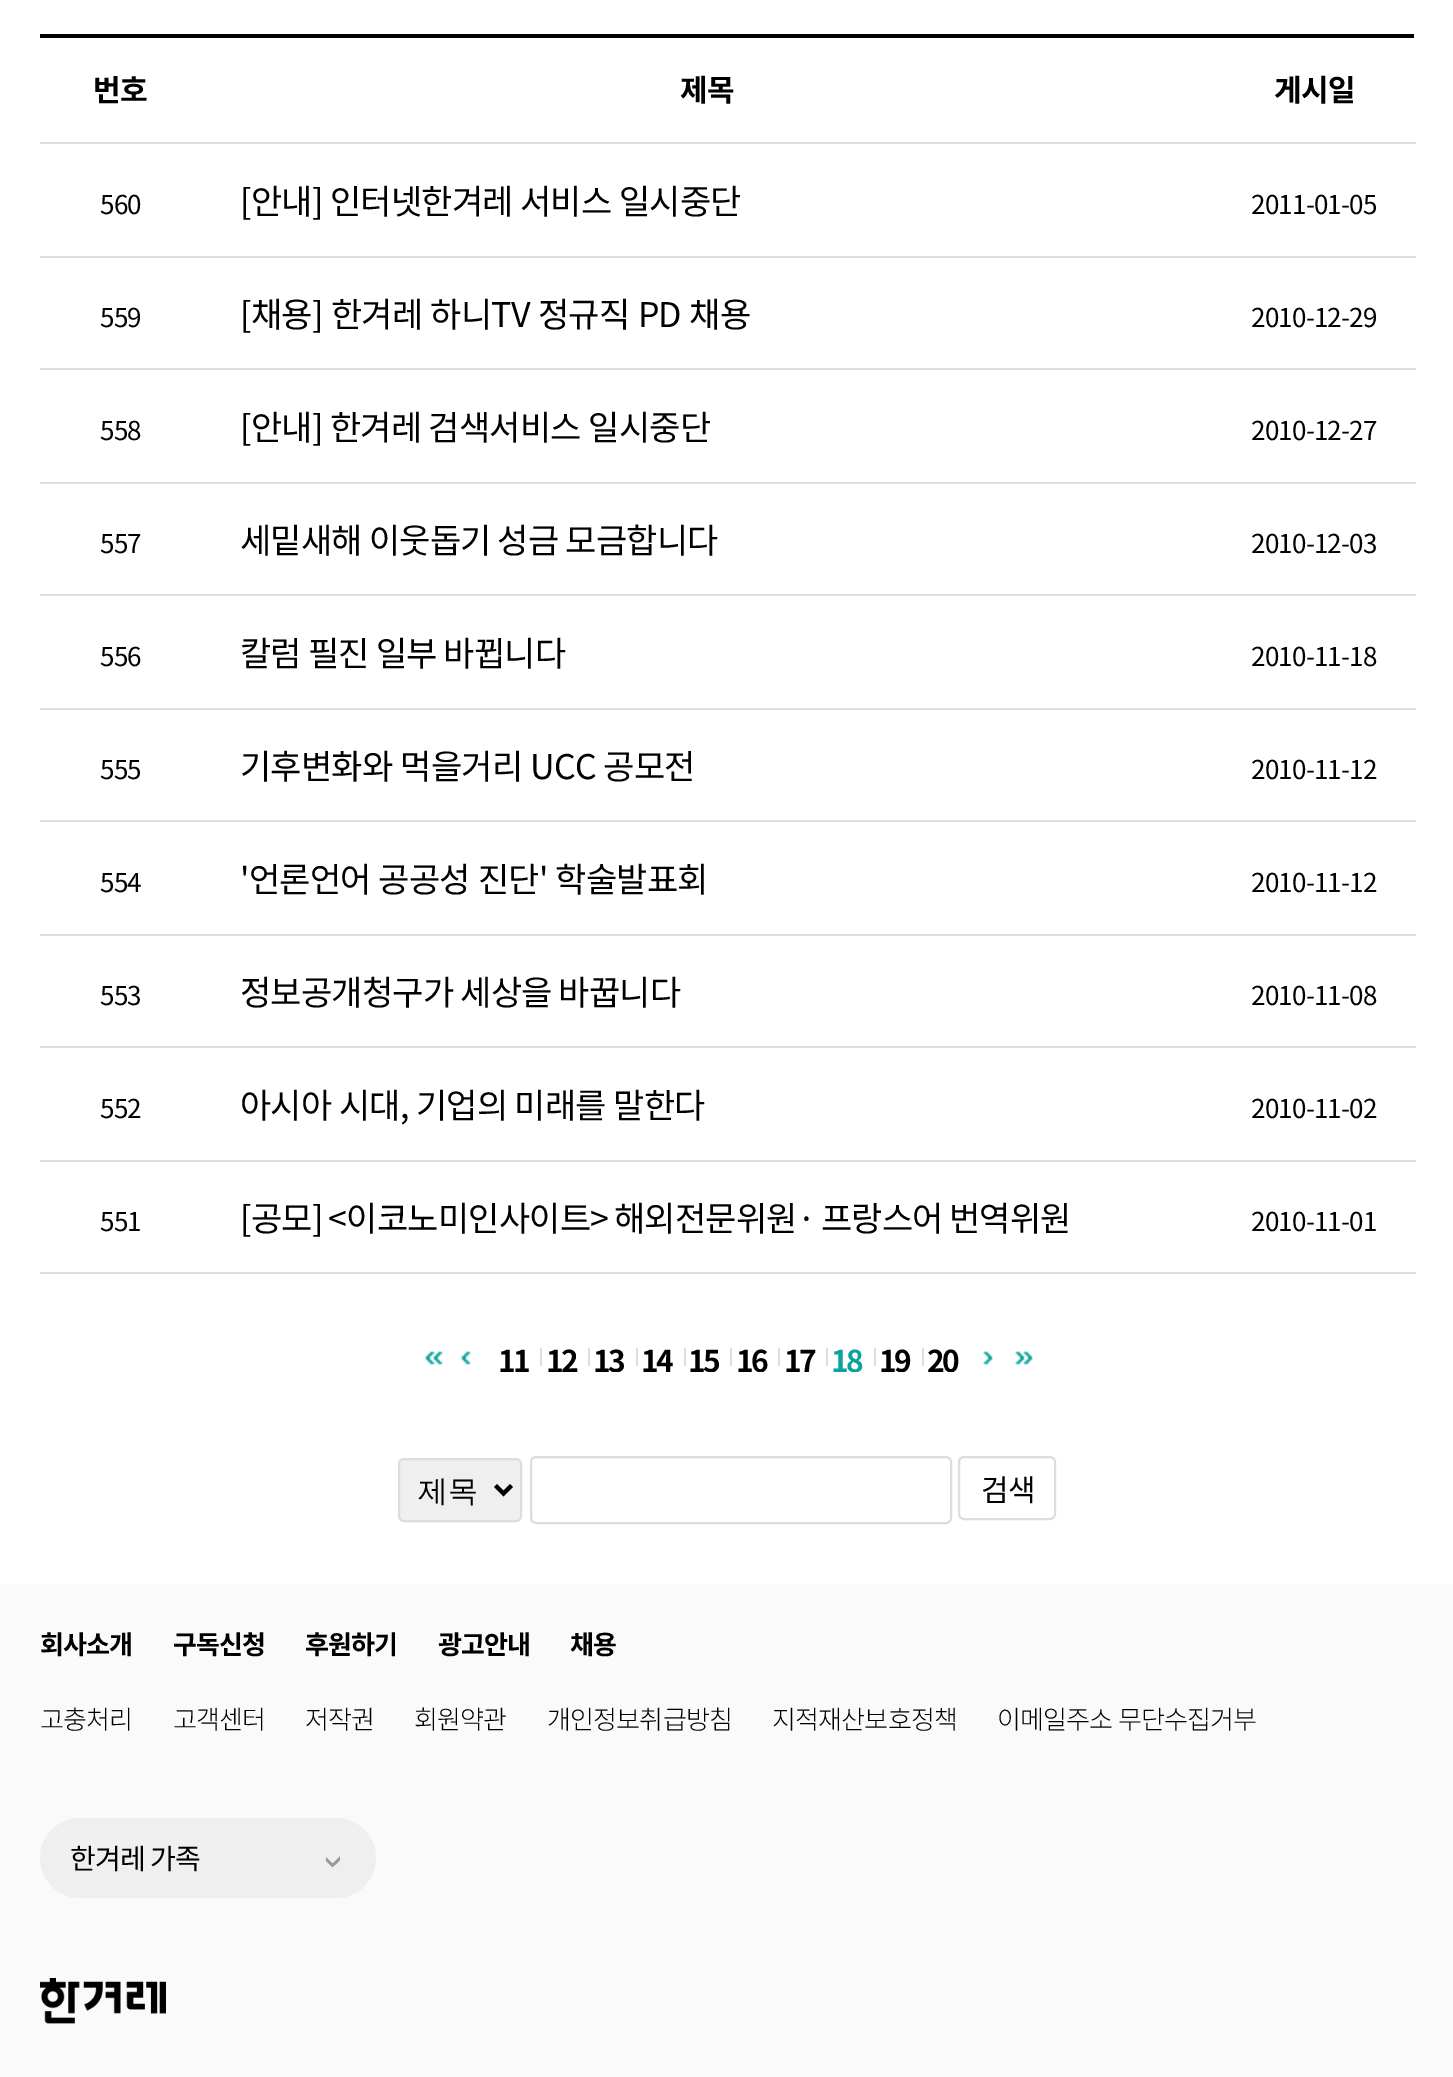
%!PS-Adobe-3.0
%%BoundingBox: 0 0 1453 2077
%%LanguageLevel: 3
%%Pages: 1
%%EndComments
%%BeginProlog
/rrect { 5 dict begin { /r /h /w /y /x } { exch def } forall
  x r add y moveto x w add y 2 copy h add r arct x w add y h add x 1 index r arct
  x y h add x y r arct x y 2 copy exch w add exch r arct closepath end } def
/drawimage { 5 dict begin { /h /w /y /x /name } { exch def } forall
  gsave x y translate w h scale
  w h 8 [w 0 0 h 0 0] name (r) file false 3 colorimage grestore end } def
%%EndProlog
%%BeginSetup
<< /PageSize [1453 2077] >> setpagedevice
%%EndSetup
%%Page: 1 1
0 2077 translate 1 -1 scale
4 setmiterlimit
1 setgray
0 0 1453 2077 rectfill
0 setgray
40 34 1374 4 rectfill
0.871 setgray
40 142 1376 2 rectfill
40 256 1376 2 rectfill
40 368 1376 2 rectfill
40 482 1376 2 rectfill
40 594 1376 2 rectfill
40 708 1376 2 rectfill
40 820 1376 2 rectfill
40 934 1376 2 rectfill
40 1046 1376 2 rectfill
40 1160 1376 2 rectfill
40 1272 1376 2 rectfill
(images/1.raw) 425 1351 18 14 drawimage
(images/2.raw) 461 1351 10 14 drawimage
0.867 setgray
540 1348 2 18 rectfill
588 1348 2 18 rectfill
636 1348 2 18 rectfill
684 1348 2 18 rectfill
730 1348 2 18 rectfill
778 1348 2 18 rectfill
826 1348 2 18 rectfill
874 1348 2 18 rectfill
922 1348 2 18 rectfill
(images/3.raw) 983 1351 10 14 drawimage
(images/4.raw) 1015 1351 18 14 drawimage
0.937 setgray
399 1459 122 62 5 rrect gsave fill grestore
0.867 setgray
2 setlinewidth
stroke
0 setgray
4 setlinewidth
newpath 495.5 1485.5 moveto 503.5 1493.5 lineto 511.5 1485.5 lineto stroke
0.867 setgray
2 setlinewidth
531 1457 420 66 5 rrect stroke
959 1457 96 62 5 rrect stroke
0.98 0.98 0.984 setrgbcolor
0 1584 1453 493 rectfill
0.937 setgray
40 1818 336 80 40 rrect fill
gsave
326 1854 14 14 rectclip
0.6 setgray
2.7 setlinewidth
1 setlinecap
1 setlinejoin
newpath 322 1855 moveto 332.5 1865.5 lineto 343.5 1855 lineto stroke
grestore
(images/5.raw) 40 1978 126 46 drawimage
/NotoSansKR-Bold [30 0 0 -30 0 0] selectfont
0 setgray
93 101 moveto -0.8 0 (번호) ashow
680 101 moveto -0.8 0 (제목) ashow
1274 101 moveto -0.8 0 (게시일) ashow
/NotoSansKR-Regular [26 0 0 -26 0 0] selectfont
100 214 moveto -0.8 0 (560) ashow
/NotoSansKR-Regular [34 0 0 -34 0 0] selectfont
240 214 moveto 0.5 0 32 -0.8 0 ([안내] 인터넷한겨레 서비스 일시중단) awidthshow
/NotoSansKR-Regular [26 0 0 -26 0 0] selectfont
1251 214 moveto -0.8 0 (2011-01-05) ashow
100 327 moveto -0.8 0 (559) ashow
/NotoSansKR-Regular [34 0 0 -34 0 0] selectfont
240 327 moveto 1.5 0 32 -0.8 0 ([채용] 한겨레 하니TV 정규직 PD 채용) awidthshow
/NotoSansKR-Regular [26 0 0 -26 0 0] selectfont
1251 327 moveto -0.8 0 (2010-12-29) ashow
100 440 moveto -0.8 0 (558) ashow
/NotoSansKR-Regular [34 0 0 -34 0 0] selectfont
240 440 moveto 0.5 0 32 -0.8 0 ([안내] 한겨레 검색서비스 일시중단) awidthshow
/NotoSansKR-Regular [26 0 0 -26 0 0] selectfont
1251 440 moveto -0.8 0 (2010-12-27) ashow
100 553 moveto -0.8 0 (557) ashow
/NotoSansKR-Regular [34 0 0 -34 0 0] selectfont
240 553 moveto -0.8 0 (세밑새해 이웃돕기 성금 모금합니다) ashow
/NotoSansKR-Regular [26 0 0 -26 0 0] selectfont
1251 553 moveto -0.8 0 (2010-12-03) ashow
100 666 moveto -0.8 0 (556) ashow
/NotoSansKR-Regular [34 0 0 -34 0 0] selectfont
240 666 moveto -0.8 0 (칼럼 필진 일부 바뀝니다) ashow
/NotoSansKR-Regular [26 0 0 -26 0 0] selectfont
1251 666 moveto -0.8 0 (2010-11-18) ashow
100 779 moveto -0.8 0 (555) ashow
/NotoSansKR-Regular [34 0 0 -34 0 0] selectfont
240 779 moveto 1 0 32 -0.8 0 (기후변화와 먹을거리 UCC 공모전) awidthshow
/NotoSansKR-Regular [26 0 0 -26 0 0] selectfont
1251 779 moveto -0.8 0 (2010-11-12) ashow
100 892 moveto -0.8 0 (554) ashow
/NotoSansKR-Regular [34 0 0 -34 0 0] selectfont
240 892 moveto 1 0 32 -0.8 0 ('언론언어 공공성 진단' 학술발표회) awidthshow
/NotoSansKR-Regular [26 0 0 -26 0 0] selectfont
1251 892 moveto -0.8 0 (2010-11-12) ashow
100 1005 moveto -0.8 0 (553) ashow
/NotoSansKR-Regular [34 0 0 -34 0 0] selectfont
240 1005 moveto -0.8 0 (정보공개청구가 세상을 바꿉니다) ashow
/NotoSansKR-Regular [26 0 0 -26 0 0] selectfont
1251 1005 moveto -0.8 0 (2010-11-08) ashow
100 1118 moveto -0.8 0 (552) ashow
/NotoSansKR-Regular [34 0 0 -34 0 0] selectfont
240 1118 moveto 0.5 0 32 -0.8 0 (아시아 시대, 기업의 미래를 말한다) awidthshow
/NotoSansKR-Regular [26 0 0 -26 0 0] selectfont
1251 1118 moveto -0.8 0 (2010-11-02) ashow
100 1231 moveto -0.8 0 (551) ashow
/NotoSansKR-Regular [34 0 0 -34 0 0] selectfont
240 1231 moveto -1 0 32 -0.8 0 ([공모] <이코노미인사이트> 해외전문위원· 프랑스어 번역위원) awidthshow
/NotoSansKR-Regular [26 0 0 -26 0 0] selectfont
1251 1231 moveto -0.8 0 (2010-11-01) ashow
/NotoSansKR-Bold [30 0 0 -30 0 0] selectfont
498 1372 moveto -3 0 (11) ashow
546 1372 moveto -3 0 (12) ashow
gsave
588 1342 40 30 rectclip
593 1372 moveto -3 0 (13) ashow
grestore
641 1372 moveto -3 0 (14) ashow
gsave
684 1342 40 30 rectclip
688 1372 moveto -3 0 (15) ashow
grestore
gsave
730 1342 40 30 rectclip
736 1372 moveto -3 0 (16) ashow
grestore
784 1372 moveto -3 0 (17) ashow
gsave
826 1342 40 30 rectclip
0.043 0.639 0.612 setrgbcolor
831 1372 moveto -3 0 (18) ashow
grestore
gsave
874 1342 40 30 rectclip
879 1372 moveto -3 0 (19) ashow
grestore
gsave
922 1342 40 30 rectclip
927 1372 moveto -3 0 (20) ashow
grestore
/WenQuanYiZenHei-Medium [30 0 0 -30 0 0] selectfont
418 1501 moveto (제목) show
/NotoSansKR-Regular [30 0 0 -30 0 0] selectfont
981 1501 moveto -0.8 0 (검색) ashow
/NotoSansKR-Bold [26 0 0 -26 0 0] selectfont
40 1654 moveto -0.8 0 (회사소개) ashow
173 1654 moveto -0.8 0 (구독신청) ashow
305 1654 moveto -0.8 0 (후원하기) ashow
438 1654 moveto -0.8 0 (광고안내) ashow
570 1654 moveto -0.8 0 (채용) ashow
/NotoSansKR-Light [26 0 0 -26 0 0] selectfont
40 1729 moveto -0.8 0 (고충처리) ashow
173 1729 moveto -0.8 0 (고객센터) ashow
305 1729 moveto -0.8 0 (저작권) ashow
414 1729 moveto -0.8 0 (회원약관) ashow
547 1729 moveto -0.8 0 (개인정보취급방침) ashow
772 1729 moveto -0.8 0 (지적재산보호정책) ashow
997 1729 moveto -0.8 0 (이메일주소 무단수집거부) ashow
/NotoSansKR-Regular [28 0 0 -28 0 0] selectfont
70 1869 moveto -0.8 0 (한겨레 가족) ashow
showpage
%%EOF
